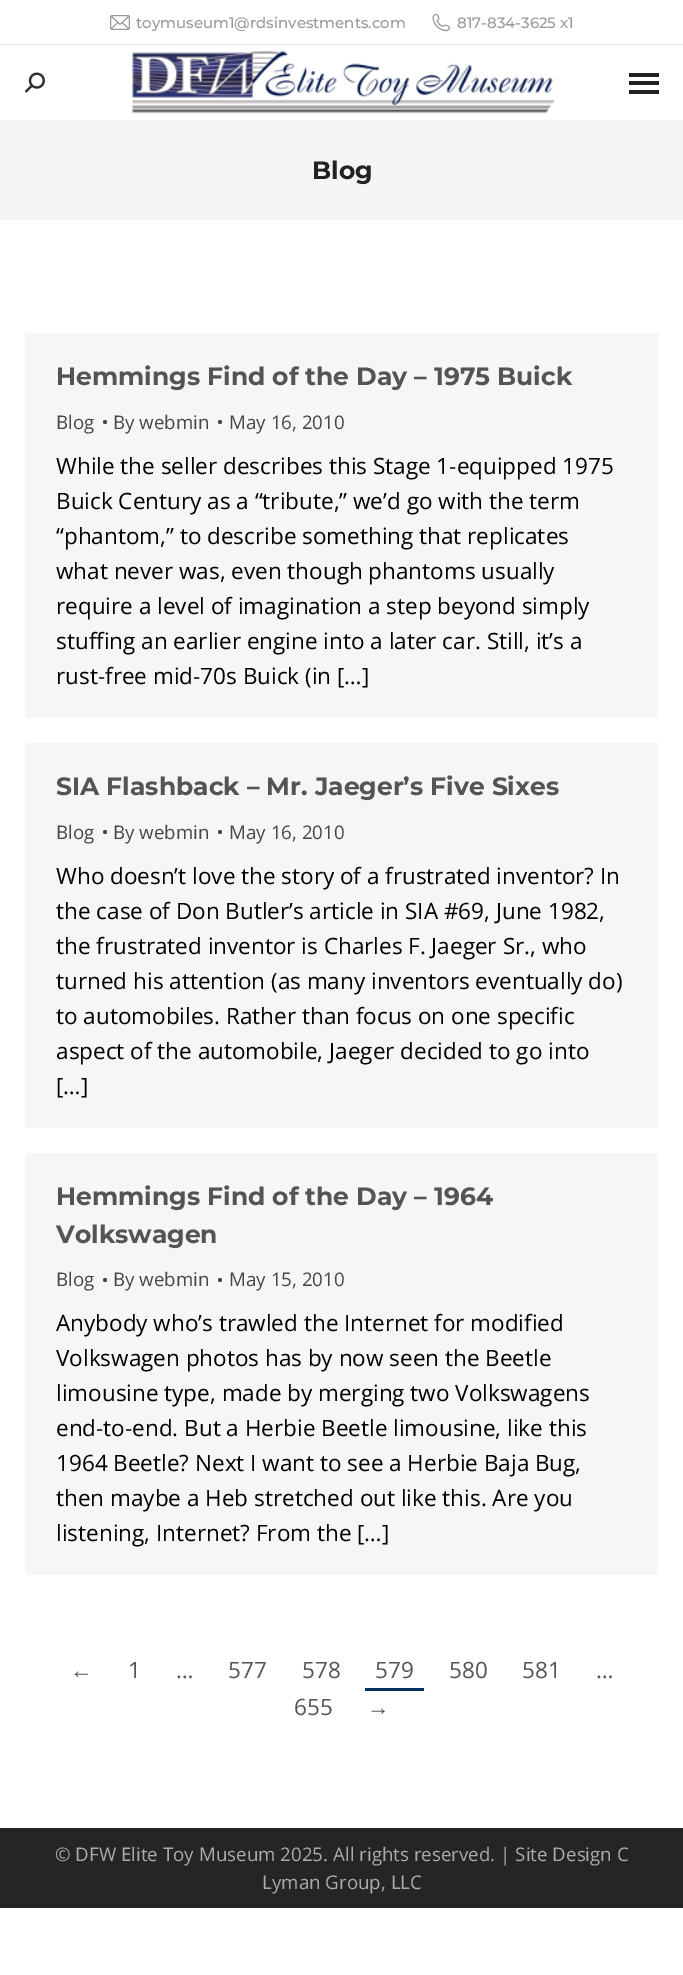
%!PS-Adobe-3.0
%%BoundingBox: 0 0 683 1975
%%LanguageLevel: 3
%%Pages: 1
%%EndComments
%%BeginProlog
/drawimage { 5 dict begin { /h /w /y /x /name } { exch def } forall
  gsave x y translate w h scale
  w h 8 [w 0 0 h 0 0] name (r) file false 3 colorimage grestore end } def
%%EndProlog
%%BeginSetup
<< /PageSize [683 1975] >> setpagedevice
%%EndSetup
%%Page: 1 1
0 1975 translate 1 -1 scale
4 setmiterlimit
1 setgray
0 0 683 1975 rectfill
(images/1.raw) 110 15 20 15 drawimage
(images/2.raw) 432 13 18 19 drawimage
0.902 setgray
0 44 683 1 rectfill
(images/3.raw) 25 72 20 21 drawimage
(images/4.raw) 132 51 423 63 drawimage
0.133 setgray
629 73 30 4 rectfill
629 81 30 4 rectfill
629 90 30 4 rectfill
0.961 setgray
0 120 683 100 rectfill
0.965 setgray
25 333 633 385 rectfill
0.278 setgray
newpath 105 422 2 0 360 arc closepath fill
newpath 220 422 2 0 360 arc closepath fill
0.965 setgray
25 743 633 385 rectfill
0.278 setgray
newpath 105 832 2 0 360 arc closepath fill
newpath 220 832 2 0 360 arc closepath fill
0.965 setgray
25 1153 633 422 rectfill
0.278 setgray
newpath 105 1280 2 0 360 arc closepath fill
newpath 220 1280 2 0 360 arc closepath fill
0 0.208 0.388 setrgbcolor
365 1688 59 3 rectfill
0.145 setgray
0 1828 683 80 rectfill
/Montserrat-Medium [15 0 0 -15 0 0] selectfont
0.6 setgray
136 28 moveto (toymuseum1@rdsinvestments.com) show
457 28 moveto (817-834-3625 x1) show
/Montserrat-Bold [25 0 0 -25 0 0] selectfont
0.133 setgray
312 179 moveto (Blog) show
0.329 setgray
56 385 moveto (Hemmings Find of the Day – 1975 Buick) show
/OpenSans-Regular [18.75 0 0 -18.75 0 0] selectfont
0.278 setgray
56 429 moveto (Blog) show
113 429 moveto (By webmin) show
229 429 moveto (May 16, 2010) show
/OpenSans-Regular [22.5 0 0 -22.5 0 0] selectfont
0 setgray
56 474 moveto (While the seller describes this Stage 1-equipped 1975) show
56 509 moveto (Buick Century as a “tribute,” we’d go with the term) show
56 544 moveto (“phantom,” to describe something that replicates) show
56 579 moveto (what never was, even though phantoms usually) show
56 614 moveto (require a level of imagination a step beyond simply) show
56 649 moveto (stuffing an earlier engine into a later car. Still, it’s a) show
56 684 moveto (rust-free mid-70s Buick \(in […]) show
/Montserrat-Bold [25 0 0 -25 0 0] selectfont
0.329 setgray
56 795 moveto (SIA Flashback – Mr. Jaeger’s Five Sixes) show
/OpenSans-Regular [18.75 0 0 -18.75 0 0] selectfont
0.278 setgray
56 839 moveto (Blog) show
113 839 moveto (By webmin) show
229 839 moveto (May 16, 2010) show
/OpenSans-Regular [22.5 0 0 -22.5 0 0] selectfont
0 setgray
56 884 moveto (Who doesn’t love the story of a frustrated inventor? In) show
56 919 moveto (the case of Don Butler’s article in SIA #69, June 1982,) show
56 954 moveto (the frustrated inventor is Charles F. Jaeger Sr., who) show
56 989 moveto (turned his attention \(as many inventors eventually do\)) show
56 1024 moveto (to automobiles. Rather than focus on one specific) show
56 1059 moveto (aspect of the automobile, Jaeger decided to go into) show
56 1094 moveto ([…]) show
/Montserrat-Bold [25 0 0 -25 0 0] selectfont
0.329 setgray
56 1205 moveto (Hemmings Find of the Day – 1964) show
56 1243 moveto (Volkswagen) show
/OpenSans-Regular [18.75 0 0 -18.75 0 0] selectfont
0.278 setgray
56 1286 moveto (Blog) show
113 1286 moveto (By webmin) show
229 1286 moveto (May 15, 2010) show
/OpenSans-Regular [22.5 0 0 -22.5 0 0] selectfont
0 setgray
56 1331 moveto (Anybody who’s trawled the Internet for modified) show
56 1366 moveto (Volkswagen photos has by now seen the Beetle) show
56 1401 moveto (limousine type, made by merging two Volkswagens) show
56 1436 moveto (end-to-end. But a Herbie Beetle limousine, like this) show
56 1471 moveto (1964 Beetle? Next I want to see a Herbie Baja Bug,) show
56 1506 moveto (then maybe a Heb stretched out like this. Are you) show
56 1541 moveto (listening, Internet? From the […]) show
/LiberationSans-Regular [22.5 0 0 -22.5 0 0] selectfont
0.329 setgray
70 1678 moveto (←) show
/OpenSans-Regular [22.5 0 0 -22.5 0 0] selectfont
128 1678 moveto (1) show
176 1678 moveto (…) show
228 1678 moveto (577) show
302 1678 moveto (578) show
375 1678 moveto (579) show
449 1678 moveto (580) show
522 1678 moveto (581) show
596 1678 moveto (…) show
294 1715 moveto (655) show
/LiberationSans-Regular [22.5 0 0 -22.5 0 0] selectfont
367 1715 moveto (→) show
/OpenSans-Regular [18.75 0 0 -18.75 0 0] selectfont
0.667 setgray
55 1861 moveto (© DFW Elite Toy Museum 2025. All rights reserved. | Site Design C) show
262 1889 moveto (Lyman Group, LLC) show
showpage
%%EOF
